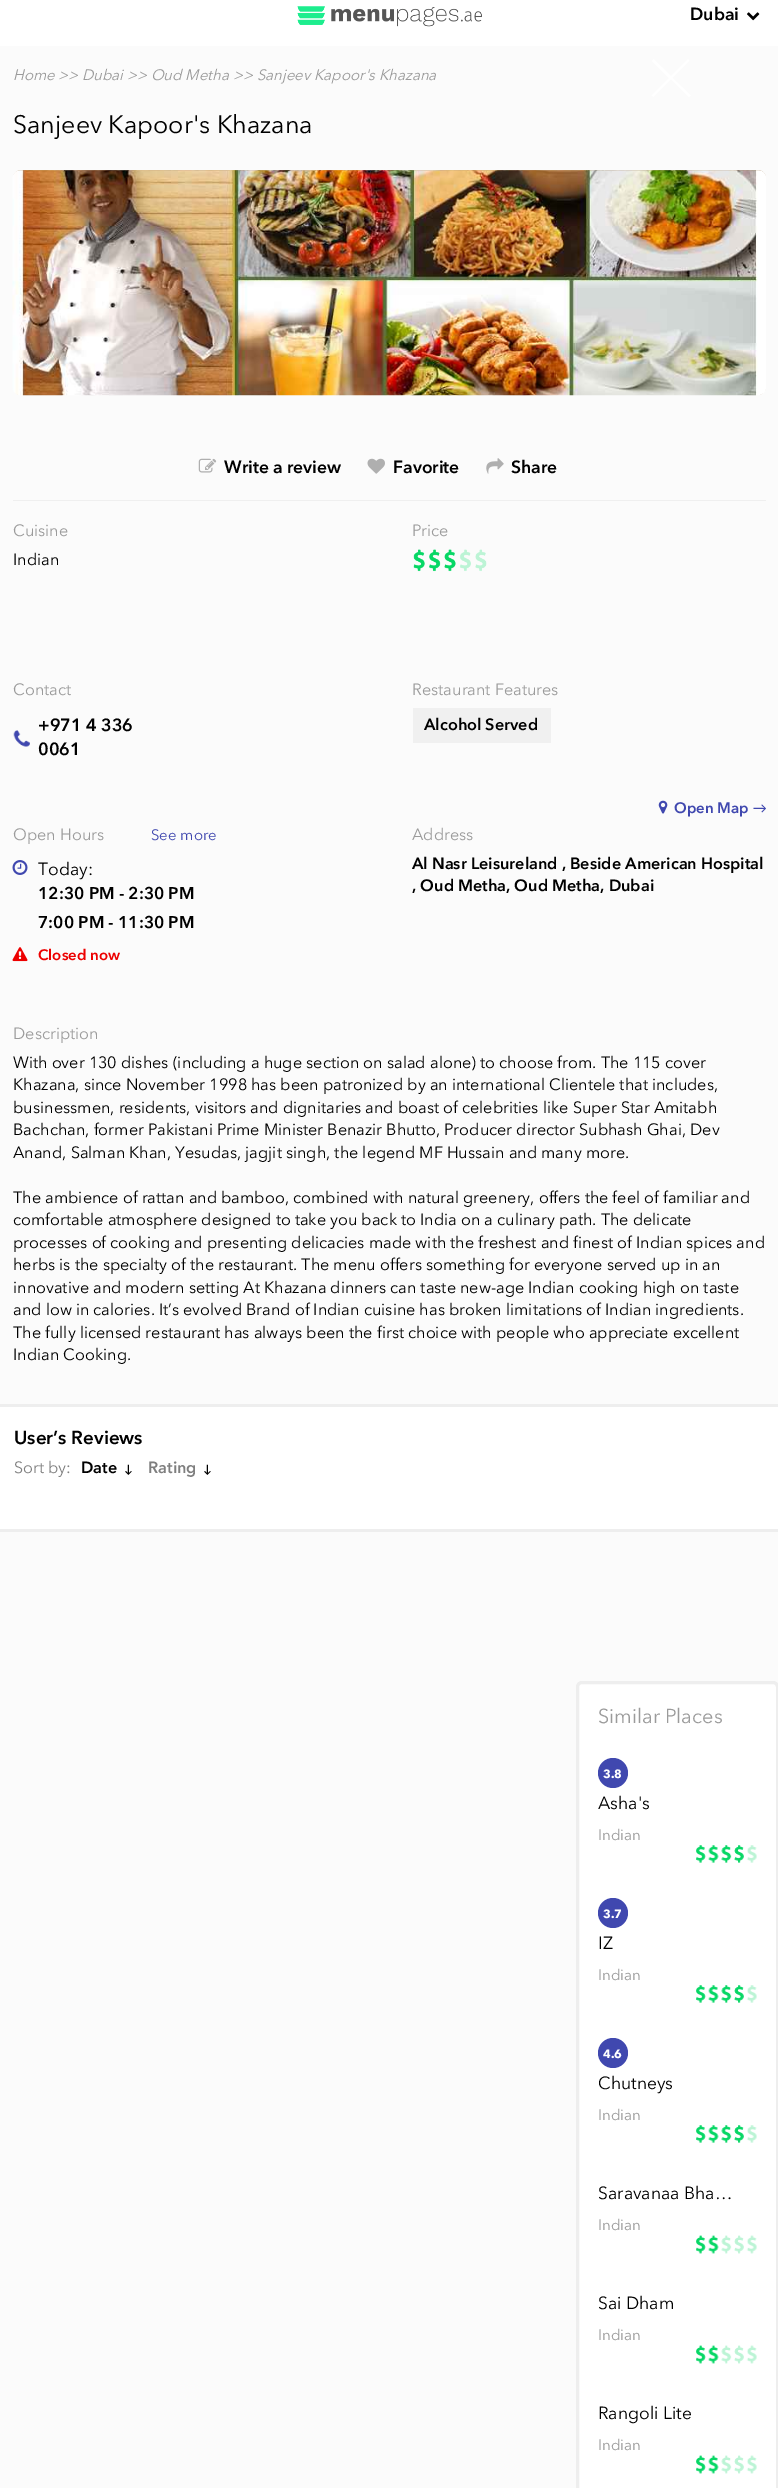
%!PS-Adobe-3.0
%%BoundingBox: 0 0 778 2488
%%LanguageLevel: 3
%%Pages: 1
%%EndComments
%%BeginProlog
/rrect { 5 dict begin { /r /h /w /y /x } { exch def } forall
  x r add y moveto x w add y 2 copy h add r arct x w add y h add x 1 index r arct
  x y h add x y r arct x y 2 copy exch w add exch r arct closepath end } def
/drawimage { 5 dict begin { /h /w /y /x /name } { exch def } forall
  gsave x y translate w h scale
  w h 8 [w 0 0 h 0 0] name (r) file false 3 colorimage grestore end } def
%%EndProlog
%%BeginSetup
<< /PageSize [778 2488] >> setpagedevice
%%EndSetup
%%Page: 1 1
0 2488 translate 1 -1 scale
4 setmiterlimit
0.984 setgray
0 0 778 2488 rectfill
1 setgray
0 0 778 46 rectfill
(images/1.raw) 297 6 185 21 drawimage
(images/2.raw) 747 12 13 9 drawimage
newpath 691 95.5 moveto 689 97 lineto 671 79.5 lineto 653.5 97 lineto 651.5 95.5 lineto 669 78 lineto 651.5 61 lineto 653.5 59 lineto 671 76 lineto 688 59 lineto 689.5 61 lineto 672.5 78 lineto closepath eofill
0.722 0.616 0.49 setrgbcolor
13 170 753 225 8 rrect fill
(images/3.raw) 12 170 754 226 drawimage
0.937 setgray
13 500 753 1 rectfill
(images/4.raw) 198 458 19 15 drawimage
(images/5.raw) 367 458 18 16 drawimage
(images/6.raw) 486 458 18 16 drawimage
(images/7.raw) 413 549 74 23 drawimage
(images/8.raw) 13 730 17 17 drawimage
0.941 setgray
413 708 138 35 rectfill
(images/9.raw) 12 860 16 15 drawimage
(images/10.raw) 12 947 16 15 drawimage
(images/11.raw) 658 800 10 14 drawimage
1 setgray
0 1407 778 122 rectfill
0.933 setgray
0 1404 778 3 rectfill
0 1529 778 3 rectfill
1 setgray
577.5 1682.5 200 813 4.5 rrect gsave fill grestore
0.933 setgray
3 setlinewidth
stroke
0.251 0.282 0.686 setrgbcolor
newpath 613 1773 15 0 360 arc closepath fill
(images/12.raw) 696 1845 61 18 drawimage
newpath 613 1913 15 0 360 arc closepath fill
(images/12.raw) 696 1985 61 18 drawimage
newpath 613 2053 15 0 360 arc closepath fill
(images/12.raw) 696 2125 61 18 drawimage
(images/13.raw) 696 2235 61 19 drawimage
(images/13.raw) 696 2345 61 19 drawimage
(images/13.raw) 696 2455 61 19 drawimage
/AvenirNext-SemiBold [17.5 0 0 -17.5 0 0] selectfont
0 setgray
690 20 moveto (Dubai) show
/AvenirNext-Italic [15 0 0 -15 0 0] selectfont
0.608 setgray
13 80 moveto (Home) show
58 80 moveto (>> Dubai) show
127 80 moveto (>> Oud Metha) show
233 80 moveto (>> Sanjeev Kapoor's Khazana) show
/AvenirNext-Regular [25 0 0 -25 0 0] selectfont
0 setgray
13 133 moveto (Sanjeev Kapoor's Khazana) show
/AvenirNext-SemiBold [17.5 0 0 -17.5 0 0] selectfont
224 473 moveto (Write a review) show
393 473 moveto (Favorite) show
511 473 moveto (Share) show
/AvenirNext-Regular [16.25 0 0 -16.25 0 0] selectfont
0.608 setgray
13 536 moveto (Cuisine) show
0 setgray
13 565 moveto (Indian) show
0.608 setgray
412 536 moveto (Price) show
13 695 moveto (Contact) show
/AvenirNext-SemiBold [17.5 0 0 -17.5 0 0] selectfont
0 setgray
38 731 moveto (+971 4 336) show
38 755 moveto (0061) show
/AvenirNext-Regular [16.25 0 0 -16.25 0 0] selectfont
0.608 setgray
412 695 moveto (Restaurant Features) show
/AvenirNext-SemiBold [16.25 0 0 -16.25 0 0] selectfont
0 setgray
424 730 moveto (Alcohol Served) show
/AvenirNext-Regular [16.25 0 0 -16.25 0 0] selectfont
0.608 setgray
13 840 moveto (Open Hours) show
/AvenirNext-Regular [15 0 0 -15 0 0] selectfont
0.251 0.282 0.686 setrgbcolor
151 840 moveto (See more) show
/AvenirNext-Regular [17.5 0 0 -17.5 0 0] selectfont
0 setgray
38 875 moveto (Today:) show
/AvenirNext-SemiBold [16.9 0 0 -16.9 0 0] selectfont
38 899 moveto (12:30 PM - 2:30 PM) show
38 928 moveto (7:00 PM - 11:30 PM) show
/AvenirNext-SemiBold [15 0 0 -15 0 0] selectfont
0.929 0 0 setrgbcolor
38 960 moveto (Closed now) show
0.251 0.282 0.686 setrgbcolor
674 813 moveto (Open Map) show
/Carlito-Regular [15 0 0 -15 0 0] selectfont
753 813 moveto (→) show
/AvenirNext-Regular [16.25 0 0 -16.25 0 0] selectfont
0.608 setgray
412 840 moveto (Address) show
/AvenirNext-SemiBold [16.25 0 0 -16.25 0 0] selectfont
0 setgray
412 869 moveto (Al Nasr Leisureland , Beside American Hospital) show
412 891 moveto (, Oud Metha, Oud Metha, Dubai) show
/AvenirNext-Regular [16.25 0 0 -16.25 0 0] selectfont
0.608 setgray
13 1039 moveto (Description) show
0 setgray
13 1068 moveto (With over 130 dishes \(including a huge section on salad alone\) to choose from. The 115 cover) show
13 1090 moveto (Khazana, since November 1998 has been patronized by an international Clientele that includes,) show
13 1113 moveto (businessmen, residents, visitors and dignitaries and boast of celebrities like Super Star Amitabh) show
13 1135 moveto (Bachchan, former Pakistani Prime Minister Benazir Bhutto, Producer director Subhash Ghai, Dev) show
13 1158 moveto (Anand, Salman Khan, Yesudas, jagjit singh, the legend MF Hussain and many more.) show
13 1203 moveto (The ambience of rattan and bamboo, combined with natural greenery, offers the feel of familiar and) show
13 1225 moveto (comfortable atmosphere designed to take you back to India on a culinary path. The delicate) show
13 1248 moveto (processes of cooking and presenting delicacies made with the freshest and finest of Indian spices and) show
13 1270 moveto (herbs is the specialty of the restaurant. The menu offers something for everyone served up in an) show
13 1293 moveto (innovative and modern setting At Khazana dinners can taste new-age Indian cooking high on taste) show
13 1315 moveto (and low in calories. It’s evolved Brand of Indian cuisine has broken limitations of Indian ingredients.) show
13 1338 moveto (The fully licensed restaurant has always been the first choice with people who appreciate excellent) show
13 1360 moveto (Indian Cooking.) show
/AvenirNext-SemiBold [18.75 0 0 -18.75 0 0] selectfont
14 1444 moveto (User’s Reviews) show
/AvenirNext-Regular [16.25 0 0 -16.25 0 0] selectfont
0.498 setgray
14 1473 moveto (Sort by:) show
/AvenirNext-SemiBold [16.25 0 0 -16.25 0 0] selectfont
0 setgray
81 1473 moveto (Date) show
/Carlito-Bold [12 0 0 -12 0 0] selectfont
123 1473 moveto (↓) show
/AvenirNext-SemiBold [16.25 0 0 -16.25 0 0] selectfont
0.498 setgray
148 1473 moveto (Rating) show
/Carlito-Bold [12 0 0 -12 0 0] selectfont
0 setgray
202 1473 moveto (↓) show
/AvenirNext-Regular [20 0 0 -20 0 0] selectfont
0.608 setgray
598 1723 moveto (Similar Places) show
/AvenirNext-Bold [12 0 0 -12 0 0] selectfont
1 setgray
603 1778 moveto (3.8) show
/AvenirNext-Regular [17.5 0 0 -17.5 0 0] selectfont
0 setgray
598 1809 moveto (Asha's) show
/AvenirNext-Regular [15 0 0 -15 0 0] selectfont
0.608 setgray
598 1840 moveto (Indian) show
/AvenirNext-Bold [12 0 0 -12 0 0] selectfont
1 setgray
603 1918 moveto (3.7) show
/AvenirNext-Regular [17.5 0 0 -17.5 0 0] selectfont
0 setgray
598 1949 moveto (IZ) show
/AvenirNext-Regular [15 0 0 -15 0 0] selectfont
0.608 setgray
598 1980 moveto (Indian) show
/AvenirNext-Bold [12 0 0 -12 0 0] selectfont
1 setgray
603 2058 moveto (4.6) show
/AvenirNext-Regular [17.5 0 0 -17.5 0 0] selectfont
0 setgray
598 2089 moveto (Chutneys) show
/AvenirNext-Regular [15 0 0 -15 0 0] selectfont
0.608 setgray
598 2120 moveto (Indian) show
/AvenirNext-Regular [17.5 0 0 -17.5 0 0] selectfont
0 setgray
598 2199 moveto (Saravanaa Bha…) show
/AvenirNext-Regular [15 0 0 -15 0 0] selectfont
0.608 setgray
598 2230 moveto (Indian) show
/AvenirNext-Regular [17.5 0 0 -17.5 0 0] selectfont
0 setgray
598 2309 moveto (Sai Dham) show
/AvenirNext-Regular [15 0 0 -15 0 0] selectfont
0.608 setgray
598 2340 moveto (Indian) show
/AvenirNext-Regular [17.5 0 0 -17.5 0 0] selectfont
0 setgray
598 2419 moveto (Rangoli Lite) show
/AvenirNext-Regular [15 0 0 -15 0 0] selectfont
0.608 setgray
598 2450 moveto (Indian) show
showpage
%%EOF
